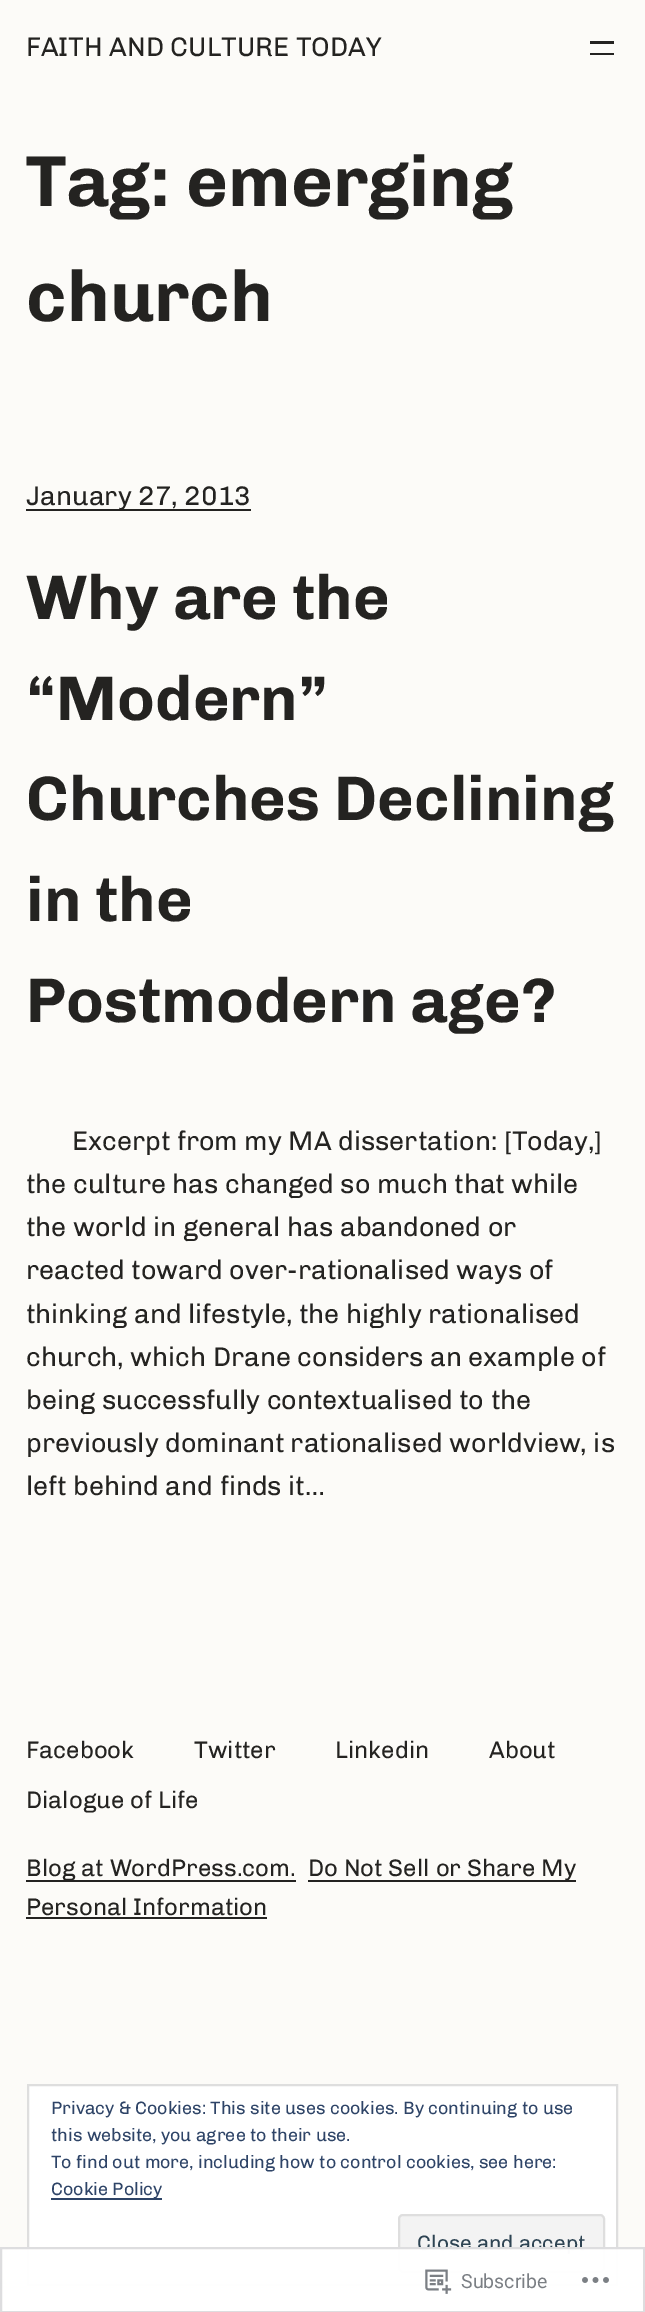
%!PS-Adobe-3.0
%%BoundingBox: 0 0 645 2312
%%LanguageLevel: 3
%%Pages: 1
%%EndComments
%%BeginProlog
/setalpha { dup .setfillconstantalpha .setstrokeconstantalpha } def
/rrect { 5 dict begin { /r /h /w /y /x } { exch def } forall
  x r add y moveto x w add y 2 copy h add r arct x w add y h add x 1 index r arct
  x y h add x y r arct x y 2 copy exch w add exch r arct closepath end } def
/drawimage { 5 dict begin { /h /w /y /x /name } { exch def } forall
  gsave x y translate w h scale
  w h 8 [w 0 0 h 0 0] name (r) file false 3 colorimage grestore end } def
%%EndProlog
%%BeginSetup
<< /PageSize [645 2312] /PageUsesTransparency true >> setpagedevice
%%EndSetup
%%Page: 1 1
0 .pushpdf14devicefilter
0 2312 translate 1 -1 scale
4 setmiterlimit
0.988 0.984 0.973 setrgbcolor
0 0 645 2312 rectfill
0.141 0.137 0.129 setrgbcolor
590 41 24 3 rectfill
590 53 24 2 rectfill
26 509 225 2 rectfill
26 1880 270 2 rectfill
308 1880 268 2 rectfill
26 1917 241 2 rectfill
1 setgray
newpath 28 2085 moveto 617 2085 lineto 617 2285 lineto 28 2285 lineto closepath gsave fill grestore
0.871 setgray
2 setlinewidth
stroke
0.18 0.267 0.404 setrgbcolor
51 2198 111 2 rectfill
0.953 setgray
399 2215 205 57 4 rrect gsave fill grestore
0.871 setgray
stroke
/Chivo-Regular [27 0 0 -27 0 0] selectfont
0.141 0.137 0.129 setrgbcolor
26 56 moveto (FAITH AND CULTURE TODAY) show
/Chivo-Bold [72 0 0 -72 0 0] selectfont
26 206 moveto (Tag: emerging) show
26 321 moveto (church) show
/Chivo-Regular [27 0 0 -27 0 0] selectfont
26 505 moveto (January 27, 2013) show
/Chivo-Bold [63 0 0 -63 0 0] selectfont
26 619 moveto (Why are the) show
26 720 moveto (“Modern”) show
26 820 moveto (Churches Declining) show
26 921 moveto (in the) show
26 1022 moveto (Postmodern age?) show
/Chivo-Regular [27 0 0 -27 0 0] selectfont
72 1150 moveto (Excerpt from my MA dissertation: [Today,]) show
26 1193 moveto (the culture has changed so much that while) show
26 1236 moveto (the world in general has abandoned or) show
26 1279 moveto (reacted toward over-rationalised ways of) show
26 1323 moveto (thinking and lifestyle, the highly rationalised) show
26 1366 moveto (church, which Drane considers an example of) show
26 1409 moveto (being successfully contextualised to the) show
26 1452 moveto (previously dominant rationalised worldview, is) show
26 1495 moveto (left behind and finds it…) show
/Chivo-Regular [24 0 0 -24 0 0] selectfont
26 1758 moveto (Facebook) show
194 1758 moveto (Twitter) show
335 1758 moveto (Linkedin) show
489 1758 moveto (About) show
26 1808 moveto (Dialogue of Life) show
26 1876 moveto (Blog at WordPress.com.) show
308 1876 moveto (Do Not Sell or Share My) show
26 1915 moveto (Personal Information) show
/Chivo-Regular [18 0 0 -18 0 0] selectfont
0.18 0.267 0.404 setrgbcolor
51 2114 moveto (Privacy & Cookies: This site uses cookies. By continuing to use) show
51 2141 moveto (this website, you agree to their use.) show
51 2168 moveto (To find out more, including how to control cookies, see here:) show
51 2195 moveto (Cookie Policy) show
/Chivo-Regular [21 0 0 -21 0 0] selectfont
0.18 0.267 0.325 setrgbcolor
417 2250 moveto (Close and accept) show
0.98 setalpha
1 setgray
0 2247 645 65 rectfill
0.863 0.863 0.871 setrgbcolor
1 2248 643 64 rectstroke
1 setalpha
(images/1.raw) 425 2269 27 25 drawimage
/Roboto-Regular [19.5 0 0 -19.5 0 0] selectfont
0.482 0.498 0.518 setrgbcolor
461 2288 moveto (Subscribe) show
(images/2.raw) 582 2277 27 6 drawimage
.poppdf14devicefilter showpage
%%EOF
